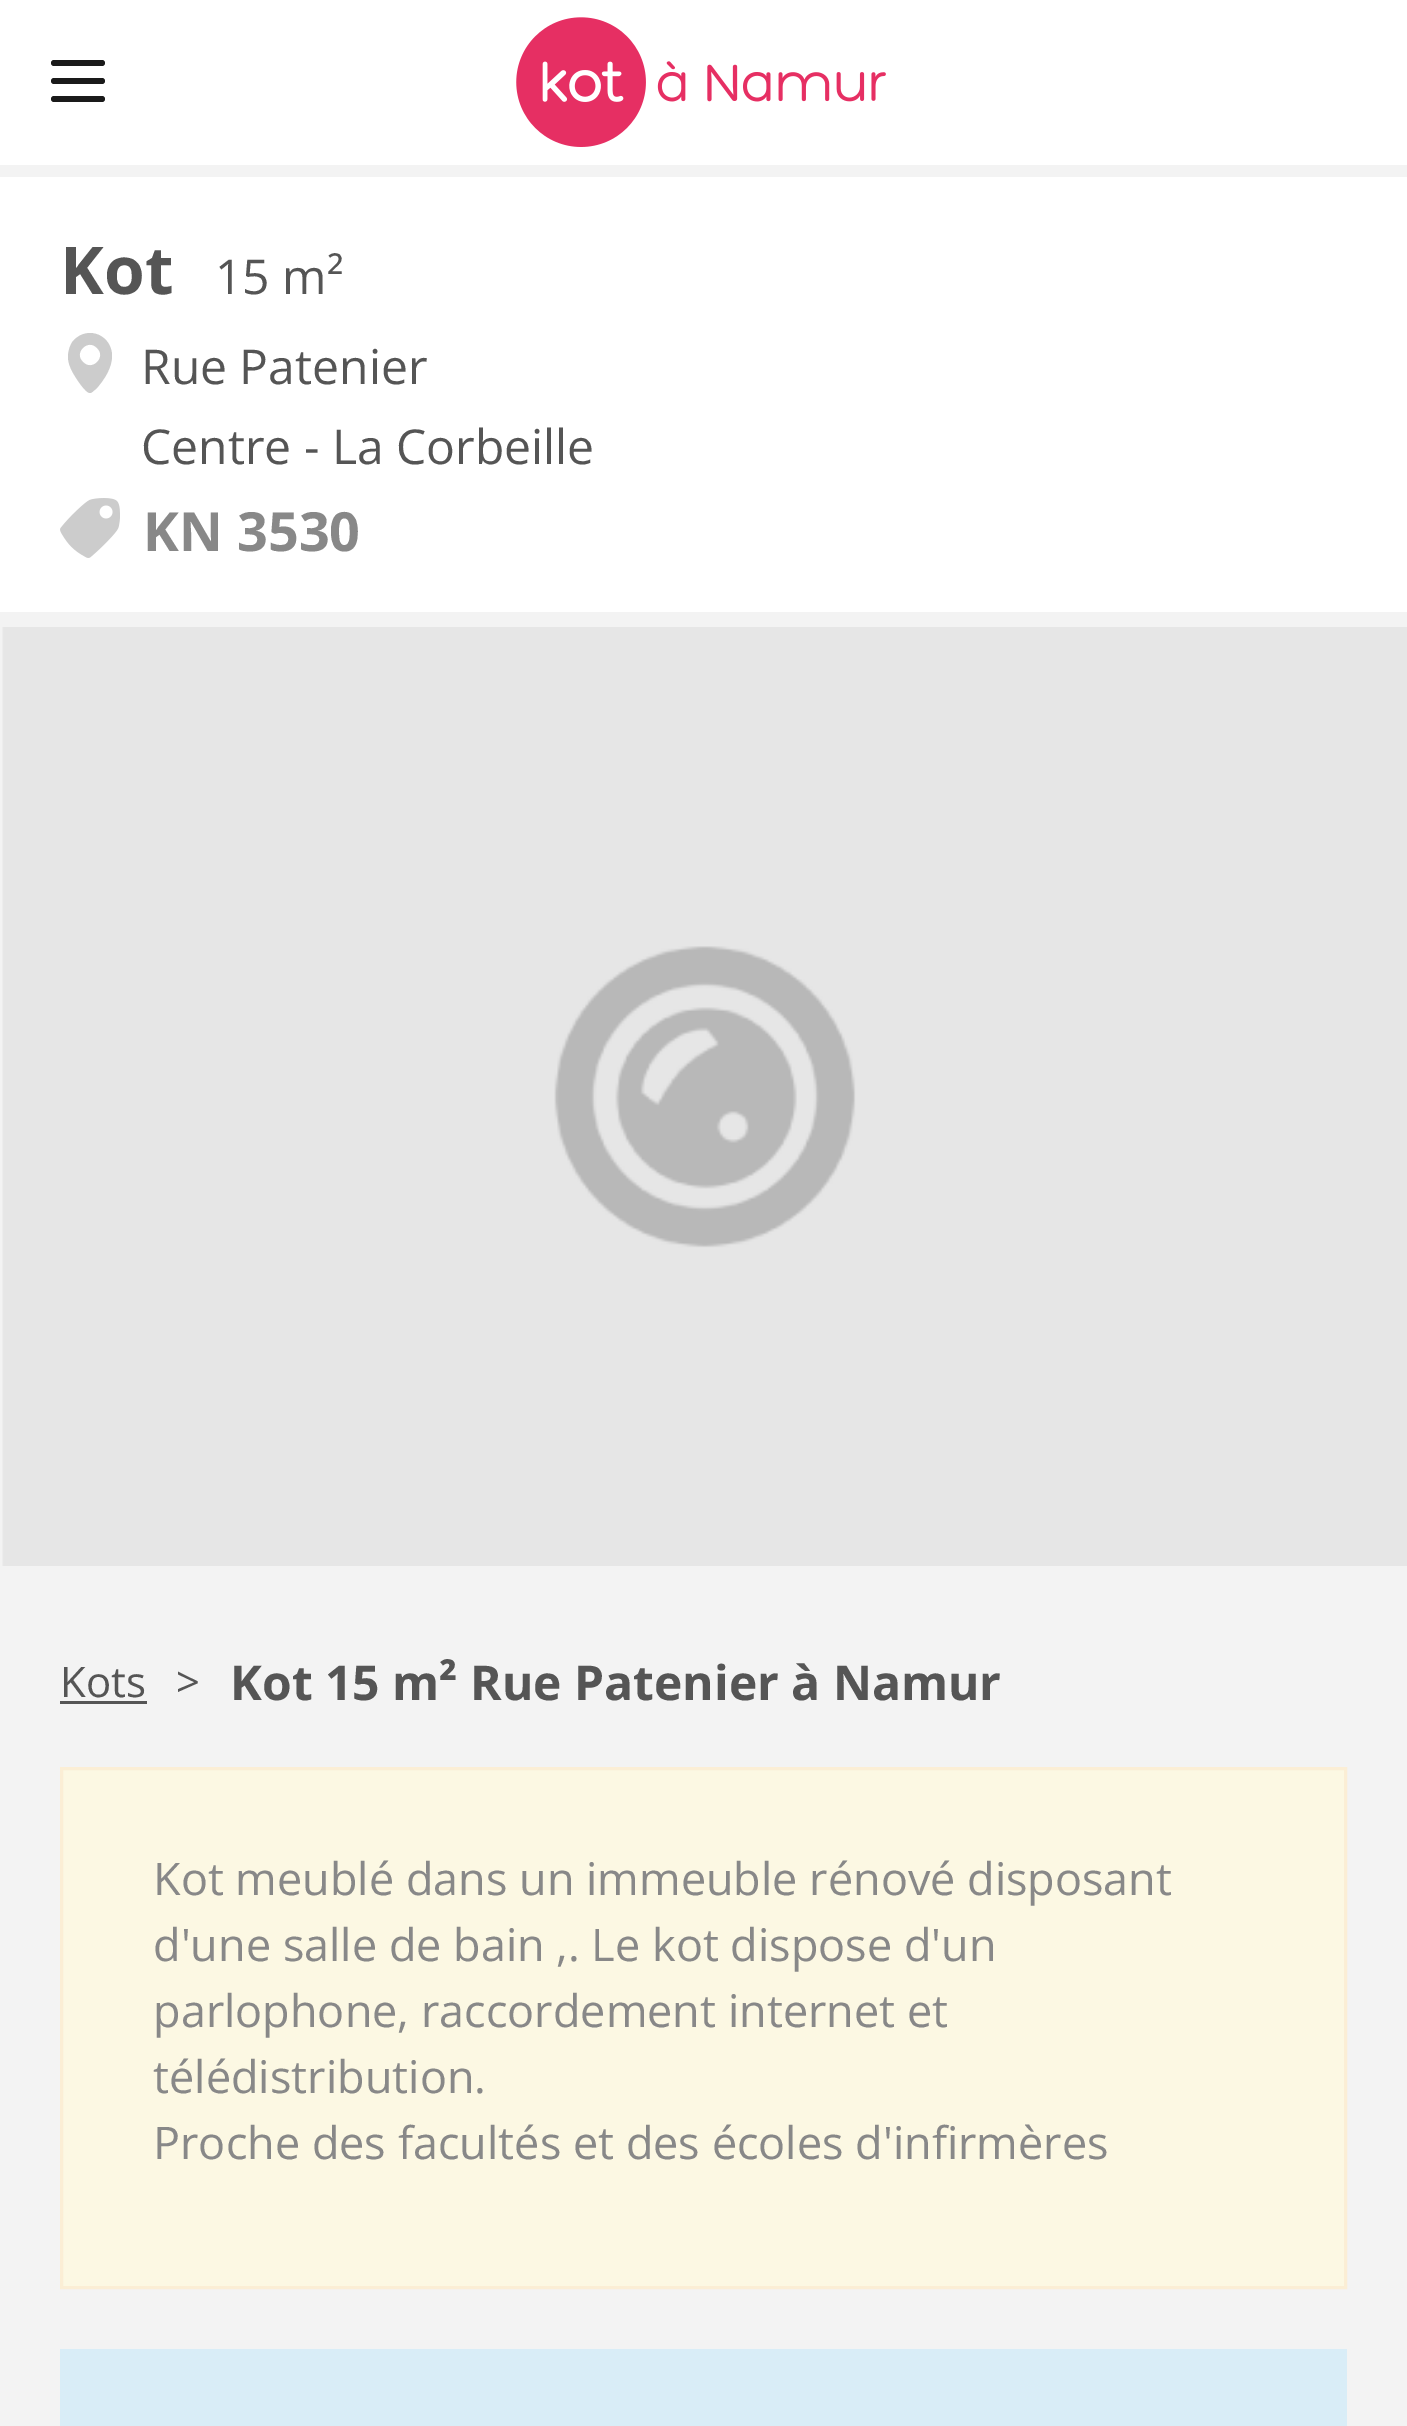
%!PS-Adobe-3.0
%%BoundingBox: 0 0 1407 2426
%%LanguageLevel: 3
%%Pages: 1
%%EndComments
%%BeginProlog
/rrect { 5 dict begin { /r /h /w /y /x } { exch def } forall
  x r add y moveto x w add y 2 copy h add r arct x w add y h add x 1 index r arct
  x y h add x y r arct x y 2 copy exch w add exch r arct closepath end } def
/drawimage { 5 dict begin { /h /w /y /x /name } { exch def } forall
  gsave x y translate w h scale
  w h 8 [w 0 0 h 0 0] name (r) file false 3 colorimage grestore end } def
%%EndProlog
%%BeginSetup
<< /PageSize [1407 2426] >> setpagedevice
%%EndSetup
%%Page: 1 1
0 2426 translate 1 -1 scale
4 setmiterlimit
0.953 setgray
0 0 1407 2426 rectfill
1 setgray
0 0 1407 165 rectfill
0.102 setgray
51 60 54 6 3 rrect fill
51 78 54 6 3 rrect fill
51 96 54 6 3 rrect fill
(images/1.raw) 516 17 370 130 drawimage
1 setgray
0 177 1407 435 rectfill
0.8 setgray
newpath 74 340 moveto 89 325 112 336 112 356 curveto 112 368 104 380 96 389 curveto 94 390 92 393 90 393 curveto 85 393 74 375 72 371 curveto 70 367 68 362 68 357 curveto 68 351 70 344 74 340 curveto closepath 83 362 moveto 92 372 107 357 97 348 curveto 88 338 73 353 83 362 curveto closepath fill
(images/2.raw) 60 498 60 60 drawimage
(images/3.raw) 2 627 1405 939 drawimage
0.333 setgray
60 1701 87 3 rectfill
0.988 0.973 0.89 setrgbcolor
newpath 61.5 1768.5 moveto 1345.5 1768.5 lineto 1345.5 2287.5 lineto 61.5 2287.5 lineto closepath gsave fill grestore
0.984 0.933 0.835 setrgbcolor
3 setlinewidth
stroke
0.851 0.929 0.969 setrgbcolor
60 2349 1287 77 rectfill
/OpenSans-Bold [66 0 0 -66 0 0] selectfont
0.333 setgray
60 294 moveto (Kot) show
/OpenSans-Regular [48 0 0 -48 0 0] selectfont
215 294 moveto (15 m²) show
141 384 moveto (Rue Patenier) show
141 464 moveto (Centre - La Corbeille) show
/OpenSans-Bold [54 0 0 -54 0 0] selectfont
0.533 setgray
143 551 moveto (KN 3530) show
/OpenSans-Regular [42 0 0 -42 0 0] selectfont
0.333 setgray
60 1697 moveto (Kots) show
176 1697 moveto (>) show
/OpenSans-Bold [48 0 0 -48 0 0] selectfont
230 1700 moveto (Kot 15 m² Rue Patenier à Namur) show
/OpenSans-Regular [45 0 0 -45 0 0] selectfont
0.533 setgray
153 1895 moveto (Kot meublé dans un immeuble rénové disposant) show
153 1961 moveto (d'une salle de bain ,. Le kot dispose d'un) show
153 2027 moveto (parlophone, raccordement internet et) show
153 2093 moveto (télédistribution.) show
153 2159 moveto (Proche des facultés et des écoles d'infirmères) show
showpage
%%EOF
